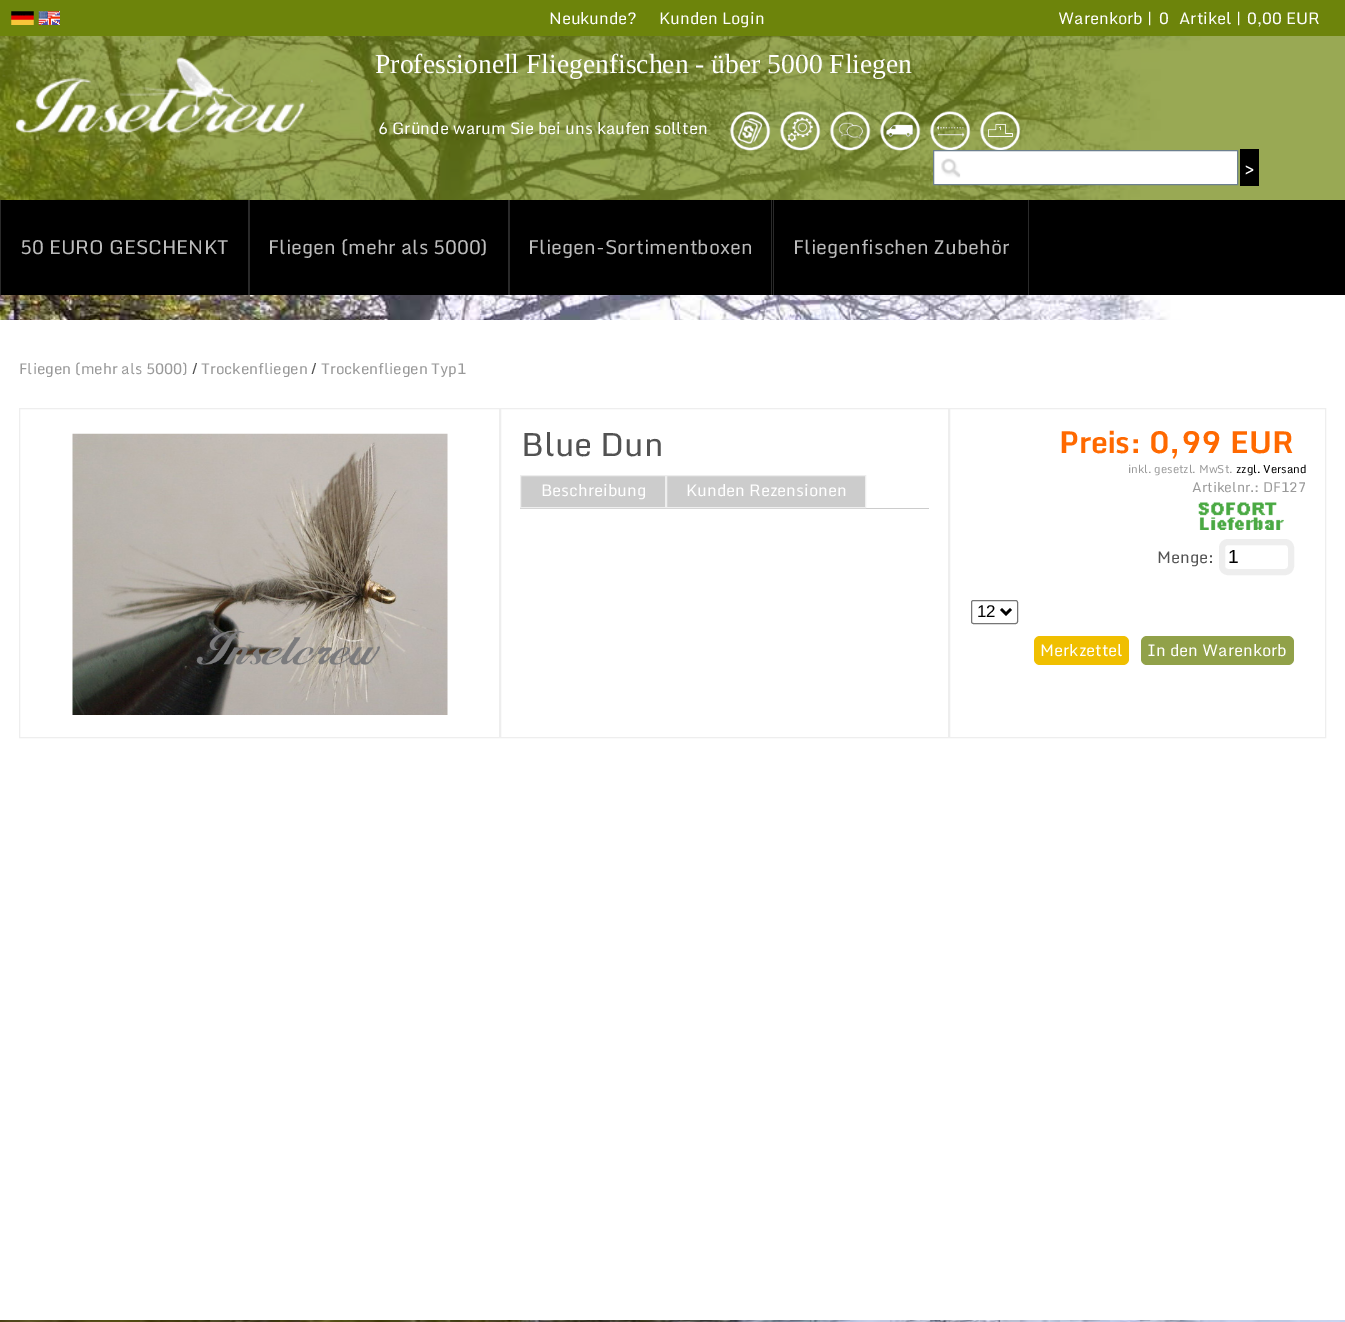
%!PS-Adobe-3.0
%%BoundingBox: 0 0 1345 1322
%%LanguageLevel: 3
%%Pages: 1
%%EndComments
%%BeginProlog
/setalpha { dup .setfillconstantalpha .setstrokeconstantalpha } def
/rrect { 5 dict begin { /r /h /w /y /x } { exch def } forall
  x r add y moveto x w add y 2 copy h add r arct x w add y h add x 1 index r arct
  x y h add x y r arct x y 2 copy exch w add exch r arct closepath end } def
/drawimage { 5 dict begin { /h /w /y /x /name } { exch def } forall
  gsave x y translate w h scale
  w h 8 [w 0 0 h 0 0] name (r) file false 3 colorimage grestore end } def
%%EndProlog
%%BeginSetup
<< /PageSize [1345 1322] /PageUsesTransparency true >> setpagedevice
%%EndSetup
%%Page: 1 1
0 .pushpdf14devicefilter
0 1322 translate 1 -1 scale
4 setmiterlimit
1 setgray
0 0 1345 1322 rectfill
(images/1.raw) 0 36 1345 1286 drawimage
0.7 setalpha
0.427 0.518 0.043 setrgbcolor
0 36 1345 2 rectfill
1 setalpha
0 0 1345 36 rectfill
(images/2.raw) 11 11 23 14 drawimage
(images/3.raw) 38 11 22 14 drawimage
0.7 setalpha
0 38 1345 162 rectfill
1 setalpha
(images/4.raw) 2 40 311 111 drawimage
(images/5.raw) 729 111 42 40 drawimage
(images/6.raw) 779 111 42 41 drawimage
(images/7.raw) 829 111 42 40 drawimage
(images/8.raw) 879 111 42 40 drawimage
(images/9.raw) 929 111 42 39 drawimage
(images/10.raw) 979 111 42 39 drawimage
1 setgray
934 151 303 33 rectfill
(images/11.raw) 941 158 20 20 drawimage
0.427 0.502 0.561 setrgbcolor
933.5 150.5 304 34 rectstroke
0 setgray
1240 149 19 37 rectfill
1 200 1344 95 rectfill
0.165 setgray
248 200 2 95 rectfill
0 200 1 95 rectfill
508 200 2 95 rectfill
771 200 1 95 rectfill
1028 200 1 95 rectfill
773 200 1 95 rectfill
1 setgray
0 320 1345 1000 rectfill
0.933 setgray
19.5 408.5 480 329 rectstroke
(images/12.raw) 72 433 376 282 drawimage
500.5 408.5 448 329 rectstroke
0.8 setgray
520 508 409 1 rectfill
newpath 520.5 475.5 moveto 665.5 475.5 lineto 665.5 507.5 lineto 520.5 507.5 lineto closepath gsave fill grestore
0.933 setgray
stroke
0.8 setgray
newpath 666.5 475.5 moveto 865.5 475.5 lineto 865.5 507.5 lineto 666.5 507.5 lineto closepath gsave fill grestore
0.933 setgray
stroke
949.5 408.5 376 329 rectstroke
(images/13.raw) 1198 502 86 28 drawimage
6 setlinewidth
1222 542 69 30 6 rrect stroke
0.463 setgray
1 setlinewidth
971.5 600.5 46 23 2 rrect stroke
0 setgray
2.5 setlinewidth
newpath 1001 609 moveto 1006 614 lineto 1011 609 lineto stroke
0.941 0.749 0 setrgbcolor
1034 636 95 29 6 rrect fill
0.569 0.631 0.286 setrgbcolor
1141 636 153 29 6 rrect fill
/Monda-Regular [16.25 0 0 -16.25 0 0] selectfont
1 setgray
549 24 moveto (Neukunde?) show
659 24 moveto (Kunden Login) show
1058 24 moveto (Warenkorb |) show
1159 24 moveto (0) show
1179 24 moveto (Artikel |) show
1247 24 moveto (0,00 EUR) show
/LiberationSerif-Regular [27.6 0 0 -27.6 0 0] selectfont
375 73 moveto (Professionell Fliegenfischen - über 5000 Fliegen) show
/Monda-Regular [16.25 0 0 -16.25 0 0] selectfont
378 134 moveto (6 Gründe warum Sie bei uns kaufen sollten) show
/Monda-Regular [22 0 0 -22 0 0] selectfont
1244 176 moveto (>) show
/Monda-Regular [19.5 0 0 -19.5 0 0] selectfont
0.737 setgray
20 254 moveto (50 EURO GESCHENKT) show
268 254 moveto (Fliegen \(mehr als 5000\)) show
528 254 moveto (Fliegen-Sortimentboxen) show
793 254 moveto (Fliegenfischen Zubehör) show
/Monda-Regular [15 0 0 -15 0 0] selectfont
0.6 setgray
19 374 moveto (Fliegen \(mehr als 5000\)) show
0.322 setgray
192 374 moveto (/) show
0.6 setgray
201 374 moveto (Trockenfliegen) show
0.322 setgray
311 374 moveto (/) show
0.6 setgray
321 374 moveto (Trockenfliegen Typ1) show
/Monda-Regular [32.5 0 0 -32.5 0 0] selectfont
0.322 setgray
521 456 moveto (Blue Dun) show
/Monda-Regular [16.25 0 0 -16.25 0 0] selectfont
1 setgray
541 496 moveto (Beschreibung) show
686 496 moveto (Kunden Rezensionen) show
/Monda-Bold [30 0 0 -30 0 0] selectfont
1 0.412 0 setrgbcolor
1059 453 moveto (Preis: 0,99 EUR) show
/Monda-Regular [11.25 0 0 -11.25 0 0] selectfont
0.6 setgray
1128 473 moveto (inkl. gesetzl. MwSt.) show
0 setgray
1236 473 moveto (zzgl. Versand) show
/Monda-Regular [13.75 0 0 -13.75 0 0] selectfont
0.6 setgray
1192 492 moveto (Artikelnr.: DF127) show
/Monda-Regular [16.25 0 0 -16.25 0 0] selectfont
0.322 setgray
1157 563 moveto (Menge:) show
/LiberationSans-Regular [19 0 0 -19 0 0] selectfont
0 setgray
1228 563 moveto (1) show
/LiberationSans-Regular [17 0 0 -17 0 0] selectfont
977 617 moveto (12) show
/Monda-Regular [16.25 0 0 -16.25 0 0] selectfont
1 setgray
1040 656 moveto (Merkzettel) show
1147 656 moveto (In den Warenkorb) show
.poppdf14devicefilter showpage
%%EOF
